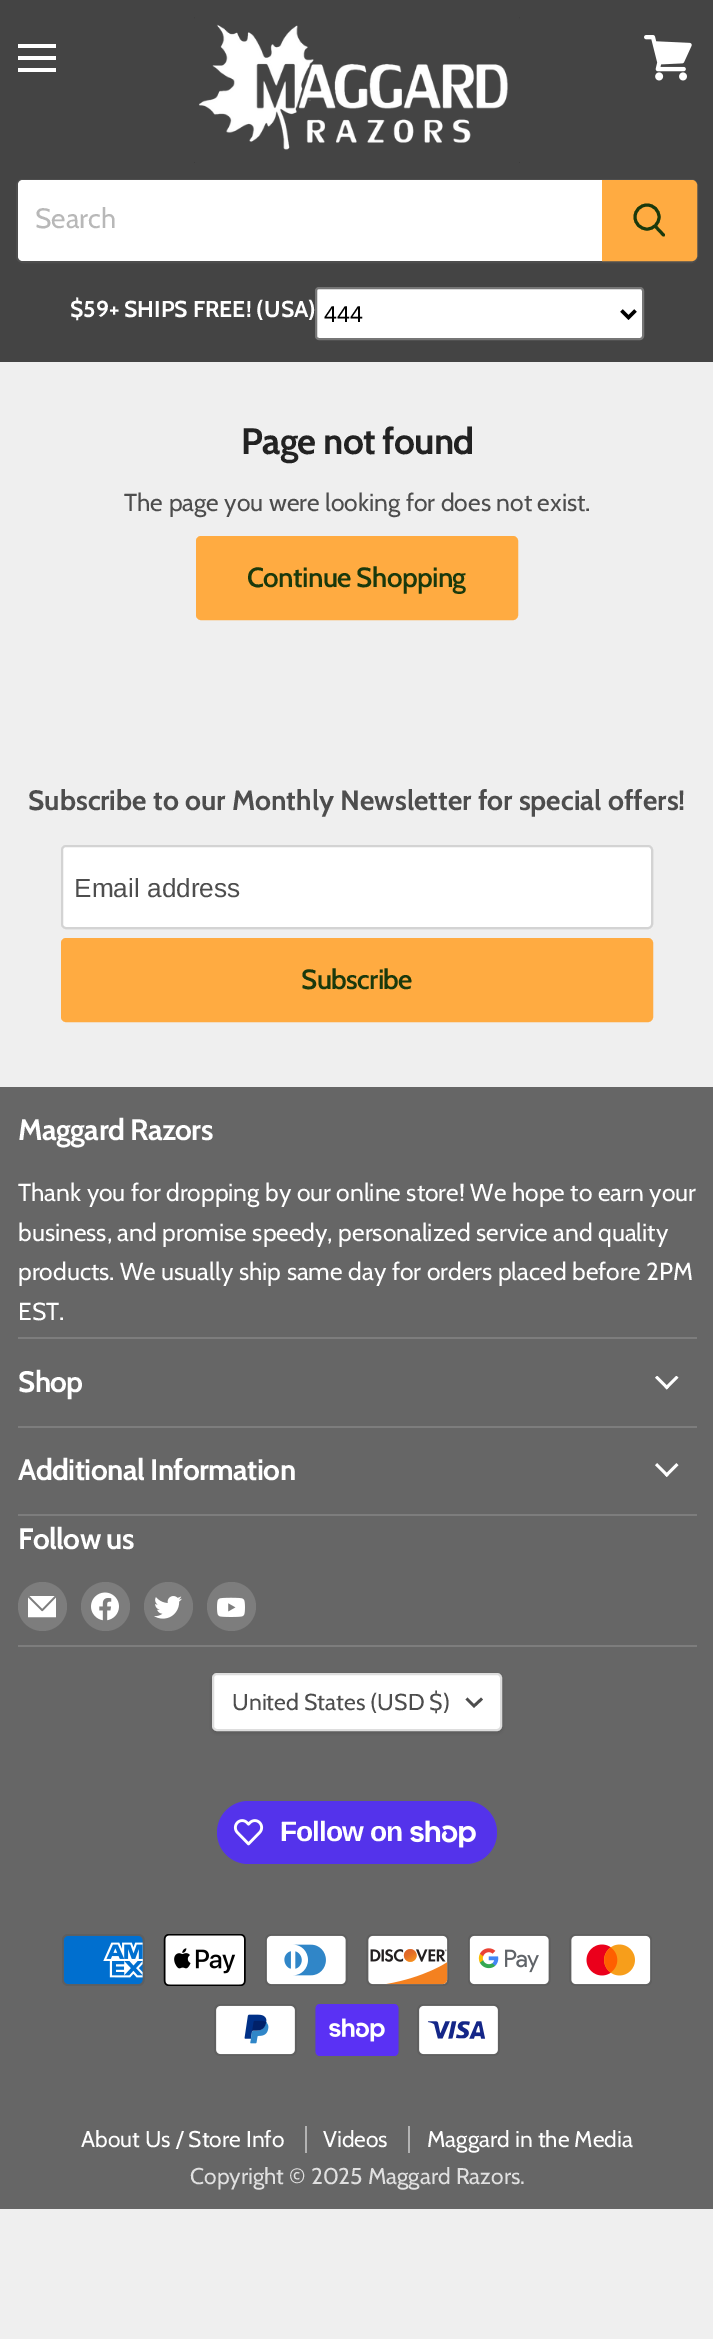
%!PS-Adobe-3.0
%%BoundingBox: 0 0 713 2339
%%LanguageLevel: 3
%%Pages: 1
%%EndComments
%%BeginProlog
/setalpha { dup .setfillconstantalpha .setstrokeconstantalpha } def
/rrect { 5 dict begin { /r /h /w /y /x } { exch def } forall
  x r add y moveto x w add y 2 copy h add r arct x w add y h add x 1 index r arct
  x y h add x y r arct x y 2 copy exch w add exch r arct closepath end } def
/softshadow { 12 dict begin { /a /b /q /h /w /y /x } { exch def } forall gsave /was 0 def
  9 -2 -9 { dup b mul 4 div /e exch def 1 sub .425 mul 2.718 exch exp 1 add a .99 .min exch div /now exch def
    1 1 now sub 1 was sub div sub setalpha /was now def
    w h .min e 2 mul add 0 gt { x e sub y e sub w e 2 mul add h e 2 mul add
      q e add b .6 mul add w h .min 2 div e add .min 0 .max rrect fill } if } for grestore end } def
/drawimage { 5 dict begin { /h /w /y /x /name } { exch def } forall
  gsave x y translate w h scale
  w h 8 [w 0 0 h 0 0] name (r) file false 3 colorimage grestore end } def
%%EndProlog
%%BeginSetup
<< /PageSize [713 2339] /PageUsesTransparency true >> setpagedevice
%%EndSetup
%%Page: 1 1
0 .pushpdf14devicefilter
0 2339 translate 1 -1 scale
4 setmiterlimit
0.937 setgray
0 0 713 2339 rectfill
0.267 setgray
0 0 713 362 rectfill
1 setgray
18 44 38 4 rectfill
18 56 38 4 rectfill
18 68 38 4 rectfill
(images/1.raw) 644 35 48 46 drawimage
(images/2.raw) 194 17 326 146 drawimage
0.2 setalpha
0.471 setgray
2 setlinewidth
17 180 680 82 6 rrect stroke
1 setalpha
1 setgray
newpath 23 180 moveto 602 180 lineto 602 261 lineto 23 261 lineto 20 261 18 259 18 256 curveto 18 185 lineto 18 182 20 180 23 180 curveto closepath fill
1 0.671 0.255 setrgbcolor
newpath 603 181 moveto 692 181 lineto 694 181 696 183 696 185 curveto 696 256 lineto 696 258 694 260 692 260 curveto 603 260 lineto closepath gsave fill grestore
stroke
0.102 0.224 0.047 setrgbcolor
3 setlinewidth
1 setlinecap
newpath 663.5 235 moveto 655.5 226.5 lineto stroke
0 setlinecap
newpath 647 217 12 0 360 arc closepath stroke
1 setgray
316 288 327 51 3 rrect gsave fill grestore
0.463 setgray
2 setlinewidth
stroke
0 setgray
3.5 setlinewidth
newpath 621.5 310.5 moveto 628.5 317.5 lineto 635.5 310.5 lineto stroke
1 0.671 0.255 setrgbcolor
197 537 320 82 4 rrect gsave fill grestore
2 setlinewidth
stroke
1 setgray
61 845 592 84 5 rrect fill
0.2 setalpha
0.133 setgray
62 846 590 82 4 rrect stroke
1 setalpha
1 0.671 0.255 setrgbcolor
62 939 590 82 4 rrect gsave fill grestore
stroke
0.4 setgray
0 1087 713 1122 rectfill
0.49 setgray
18 1337 679 2 rectfill
18 1426 679 2 rectfill
(images/3.raw) 655 1376 24 14 drawimage
18 1514 679 2 rectfill
(images/4.raw) 655 1463 24 14 drawimage
18 1645 679 2 rectfill
newpath 42.5 1606.5 24.5 0 360 arc closepath fill
(images/5.raw) 28 1596 28 22 drawimage
newpath 105.5 1606.5 24.5 0 360 arc closepath fill
(images/6.raw) 91 1592 28 29 drawimage
newpath 168.5 1606.5 24.5 0 360 arc closepath fill
(images/7.raw) 154 1596 28 23 drawimage
newpath 231.5 1606.5 24.5 0 360 arc closepath fill
(images/8.raw) 217 1597 28 20 drawimage
0 setgray
212 1675 290 58 5 2 0.15 softshadow
1 setgray
213 1674 288 56 4 rrect gsave fill grestore
0.867 setgray
stroke
0.302 setgray
2.7 setlinewidth
2 setlinecap
newpath 474 1706 moveto 481 1699.5 lineto 474 1706 moveto 467.5 1699.5 lineto stroke
0.329 0.2 0.922 setrgbcolor
217 1801 280 63 31.5 rrect fill
(images/9.raw) 233 1819 31 27 drawimage
(images/10.raw) 410 1820 66 28 drawimage
(images/11.raw) 62 1934 83 52 drawimage
(images/12.raw) 163 1934 83 52 drawimage
(images/13.raw) 265 1934 83 52 drawimage
(images/14.raw) 366 1934 83 52 drawimage
(images/15.raw) 468 1934 83 52 drawimage
(images/16.raw) 569 1934 83 52 drawimage
(images/17.raw) 214 2004 83 52 drawimage
(images/18.raw) 315 2004 84 52 drawimage
(images/19.raw) 417 2004 83 52 drawimage
0.702 setgray
305 2126 2 27 rectfill
408 2126 2 27 rectfill
/Cabin-Regular [28 0 0 -28 0 0] selectfont
0.722 setgray
35 228 moveto (Search) show
/Cabin-Bold [23 0 0 -23 0 0] selectfont
1 setgray
70 317 moveto ($59+ SHIPS FREE! \(USA\)) show
/LiberationSans-Regular [23 0 0 -23 0 0] selectfont
0 setgray
324 322 moveto (444) show
/Cabin-Bold [36.75 0 0 -36.75 0 0] selectfont
0.133 setgray
241 454 moveto -0.75 0 (Page not found) ashow
/Cabin-Regular [24.6 0 0 -24.6 0 0] selectfont
0.302 setgray
124 511 moveto (The page you were looking for does not exist.) show
/Cabin-SemiBold [27.75 0 0 -27.75 0 0] selectfont
0.102 0.224 0.047 setrgbcolor
247 587 moveto -0.6 0 (Continue Shopping) ashow
/Cabin-Bold [28 0 0 -28 0 0] selectfont
0.302 setgray
28 810 moveto (Subscribe to our Monthly Newsletter for special offers!) show
/LiberationSans-Regular [26.25 0 0 -26.25 0 0] selectfont
74 897 moveto (Email address) show
/Cabin-SemiBold [27.75 0 0 -27.75 0 0] selectfont
0.102 0.224 0.047 setrgbcolor
301 989 moveto -0.6 0 (Subscribe) ashow
/Cabin-Bold [29.5 0 0 -29.5 0 0] selectfont
1 setgray
18 1140 moveto -0.6 0 (Maggard Razors) ashow
/Cabin-Regular [24.6 0 0 -24.6 0 0] selectfont
18 1201 moveto (Thank you for dropping by our online store! We hope to earn your) show
18 1241 moveto (business, and promise speedy, personalized service and quality) show
18 1280 moveto (products. We usually ship same day for orders placed before 2PM) show
18 1320 moveto (EST.) show
/Cabin-Bold [29.5 0 0 -29.5 0 0] selectfont
18 1392 moveto -0.6 0 (Shop) ashow
18 1480 moveto -0.6 0 (Additional Information) ashow
18 1549 moveto -0.6 0 (Follow us) ashow
/Cabin-Regular [23 0 0 -23 0 0] selectfont
0.302 setgray
232 1710 moveto (United States \(USD $\)) show
/LiberationSans-Bold [28 0 0 -28 0 0] selectfont
1 setgray
280 1841 moveto -0.9 0 (Follow on) ashow
/Cabin-Regular [22.75 0 0 -22.75 0 0] selectfont
81 2147 moveto (About Us / Store Info) show
323 2147 moveto (Videos) show
427 2147 moveto (Maggard in the Media) show
0.878 setgray
190 2184 moveto (Copyright © 2025 Maggard Razors.) show
.poppdf14devicefilter showpage
%%EOF
